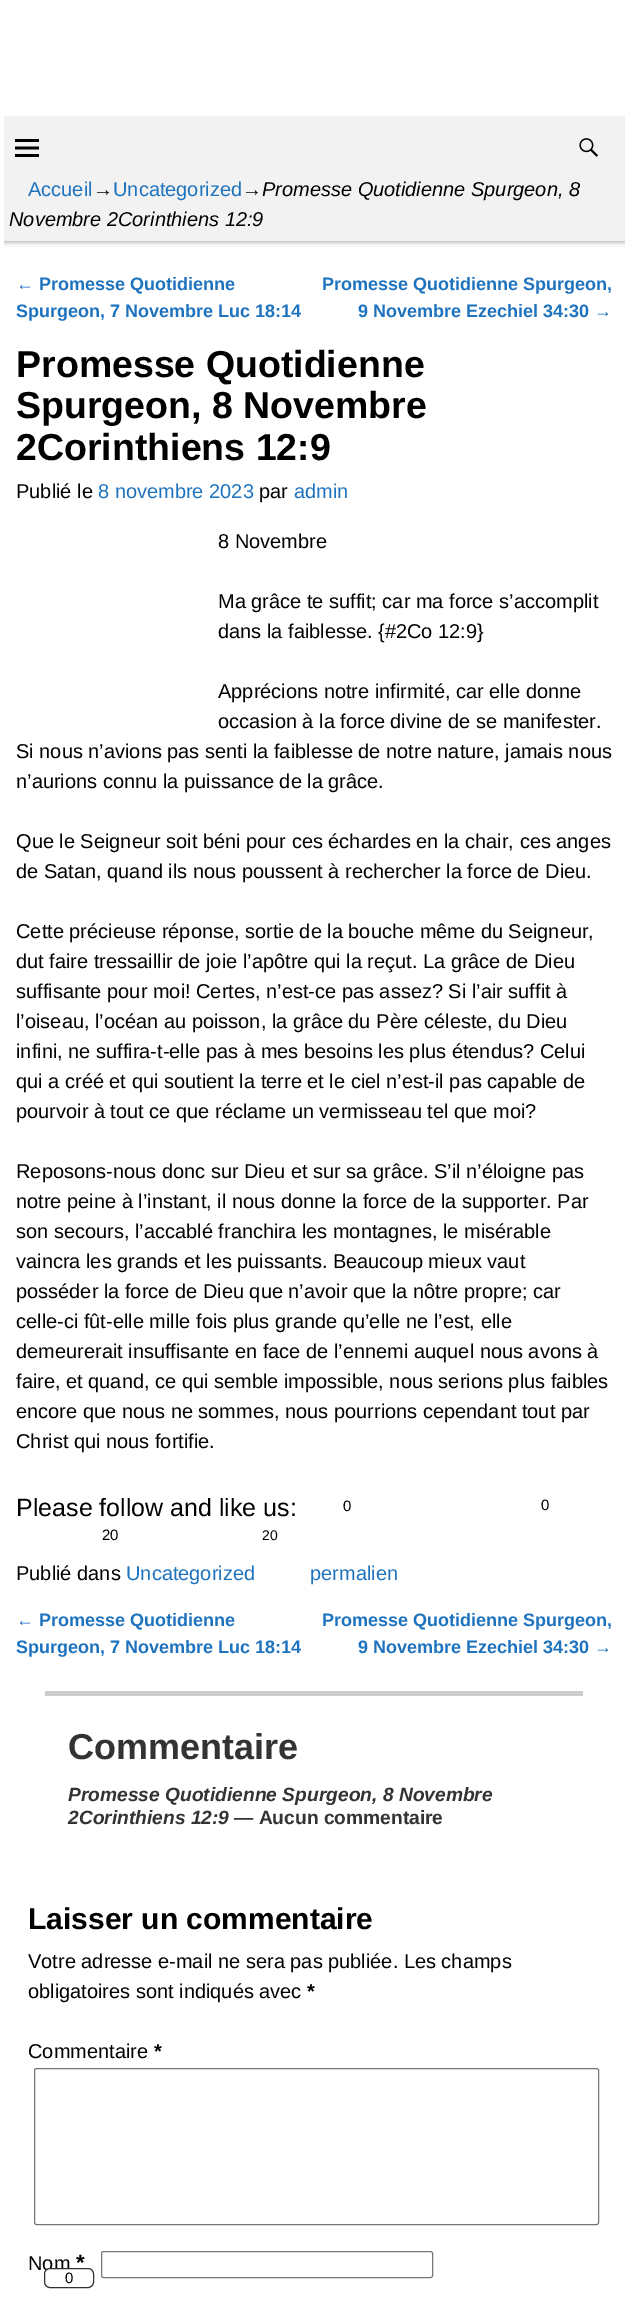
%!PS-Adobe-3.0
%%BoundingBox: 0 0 627 2308
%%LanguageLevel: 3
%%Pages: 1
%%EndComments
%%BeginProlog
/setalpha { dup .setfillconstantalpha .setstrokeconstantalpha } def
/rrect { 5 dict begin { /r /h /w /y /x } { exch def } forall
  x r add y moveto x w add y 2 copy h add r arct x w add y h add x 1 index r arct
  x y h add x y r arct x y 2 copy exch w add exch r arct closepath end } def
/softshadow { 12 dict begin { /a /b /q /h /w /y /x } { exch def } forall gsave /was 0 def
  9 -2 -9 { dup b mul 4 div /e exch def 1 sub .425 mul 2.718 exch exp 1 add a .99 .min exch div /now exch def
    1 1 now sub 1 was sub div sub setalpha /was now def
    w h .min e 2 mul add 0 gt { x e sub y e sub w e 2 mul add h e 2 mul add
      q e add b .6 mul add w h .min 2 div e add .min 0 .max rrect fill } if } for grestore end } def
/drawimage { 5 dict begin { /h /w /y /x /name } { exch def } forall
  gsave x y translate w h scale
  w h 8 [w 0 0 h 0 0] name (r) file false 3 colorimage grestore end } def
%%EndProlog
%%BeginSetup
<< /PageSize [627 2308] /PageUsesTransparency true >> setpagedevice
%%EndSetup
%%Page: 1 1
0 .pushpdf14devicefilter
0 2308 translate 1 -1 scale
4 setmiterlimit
1 setgray
0 0 627 2308 rectfill
gsave
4 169 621 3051 rectclip
0 setgray
3 168 623 75 0 2 0.25 softshadow
grestore
0.949 setgray
4 116 621 125 rectfill
(images/1.raw) 15 139 24 18 drawimage
(images/2.raw) 579 138 19 19 drawimage
0.8 setgray
45 1691 538 5 rectfill
0.463 setgray
34.5 2068.5 564 156 2 rrect stroke
101.5 2251.5 331 26 2 rrect stroke
/LiberationSans-Regular [20 0 0 -20 0 0] selectfont
0.118 0.451 0.745 setrgbcolor
28 196 moveto (Accueil) show
0 setgray
93 196 moveto (→) show
0.118 0.451 0.745 setrgbcolor
113 196 moveto (Uncategorized) show
0 setgray
242 196 moveto (→) show
/LiberationSans-Italic [20 0 0 -20 0 0] selectfont
262 196 moveto (Promesse Quotidienne Spurgeon, 8) show
9 226 moveto (Novembre 2Corinthiens 12:9) show
/LiberationSans-Regular [18 0 0 -18 0 0] selectfont
0.118 0.451 0.745 setrgbcolor
16 290 moveto (←) show
/LiberationSans-Bold [18 0 0 -18 0 0] selectfont
39 290 moveto (Promesse Quotidienne) show
16 317 moveto (Spurgeon, 7 Novembre Luc 18:14) show
322 290 moveto (Promesse Quotidienne Spurgeon,) show
358 317 moveto (9 Novembre Ezechiel 34:30) show
/LiberationSans-Regular [18 0 0 -18 0 0] selectfont
594 317 moveto (→) show
/LiberationSans-Bold [37.5 0 0 -37.5 0 0] selectfont
0 setgray
16 377 moveto (Promesse Quotidienne) show
16 418 moveto (Spurgeon, 8 Novembre) show
16 460 moveto (2Corinthiens 12:9) show
/LiberationSans-Regular [20 0 0 -20 0 0] selectfont
16 498 moveto (Publié le) show
0.118 0.451 0.745 setrgbcolor
98 498 moveto (8 novembre 2023) show
0 setgray
259 498 moveto (par) show
0.118 0.451 0.745 setrgbcolor
294 498 moveto (admin) show
0 setgray
218 548 moveto (8 Novembre) show
218 608 moveto (Ma grâce te suffit; car ma force s’accomplit) show
218 638 moveto (dans la faiblesse. {#2Co 12:9}) show
218 698 moveto (Apprécions notre infirmité, car elle donne) show
218 728 moveto (occasion à la force divine de se manifester.) show
16 758 moveto (Si nous n’avions pas senti la faiblesse de notre nature, jamais nous) show
16 788 moveto (n’aurions connu la puissance de la grâce.) show
16 848 moveto (Que le Seigneur soit béni pour ces échardes en la chair, ces anges) show
16 878 moveto (de Satan, quand ils nous poussent à rechercher la force de Dieu.) show
16 938 moveto (Cette précieuse réponse, sortie de la bouche même du Seigneur,) show
16 968 moveto (dut faire tressaillir de joie l’apôtre qui la reçut. La grâce de Dieu) show
16 998 moveto (suffisante pour moi! Certes, n’est-ce pas assez? Si l’air suffit à) show
16 1028 moveto (l’oiseau, l’océan au poisson, la grâce du Père céleste, du Dieu) show
16 1058 moveto (infini, ne suffira-t-elle pas à mes besoins les plus étendus? Celui) show
16 1088 moveto (qui a créé et qui soutient la terre et le ciel n’est-il pas capable de) show
16 1118 moveto (pourvoir à tout ce que réclame un vermisseau tel que moi?) show
16 1178 moveto (Reposons-nous donc sur Dieu et sur sa grâce. S’il n’éloigne pas) show
16 1208 moveto (notre peine à l’instant, il nous donne la force de la supporter. Par) show
16 1238 moveto (son secours, l’accablé franchira les montagnes, le misérable) show
16 1268 moveto (vaincra les grands et les puissants. Beaucoup mieux vaut) show
16 1298 moveto (posséder la force de Dieu que n’avoir que la nôtre propre; car) show
16 1328 moveto (celle-ci fût-elle mille fois plus grande qu’elle ne l’est, elle) show
16 1358 moveto (demeurerait insuffisante en face de l’ennemi auquel nous avons à) show
16 1388 moveto (faire, et quand, ce qui semble impossible, nous serions plus faibles) show
16 1418 moveto (encore que nous ne sommes, nous pourrions cependant tout par) show
16 1448 moveto (Christ qui nous fortifie.) show
/LiberationSans-Regular [25 0 0 -25 0 0] selectfont
16 1516 moveto (Please follow and like us:) show
/LiberationSans-Regular [15 0 0 -15 0 0] selectfont
343 1511 moveto (0) show
541 1510 moveto (0) show
102 1540 moveto (20) show
/LiberationSans-Regular [14 0 0 -14 0 0] selectfont
262 1540 moveto (20) show
/LiberationSans-Regular [20 0 0 -20 0 0] selectfont
16 1580 moveto (Publié dans) show
0.118 0.451 0.745 setrgbcolor
126 1580 moveto (Uncategorized) show
310 1580 moveto (permalien) show
/LiberationSans-Regular [18 0 0 -18 0 0] selectfont
16 1626 moveto (←) show
/LiberationSans-Bold [18 0 0 -18 0 0] selectfont
39 1626 moveto (Promesse Quotidienne) show
16 1653 moveto (Spurgeon, 7 Novembre Luc 18:14) show
322 1626 moveto (Promesse Quotidienne Spurgeon,) show
358 1653 moveto (9 Novembre Ezechiel 34:30) show
/LiberationSans-Regular [18 0 0 -18 0 0] selectfont
594 1653 moveto (→) show
/LiberationSans-Bold [36 0 0 -36 0 0] selectfont
0.2 setgray
68 1759 moveto (Commentaire) show
/LiberationSans-BoldItalic [19.2 0 0 -19.2 0 0] selectfont
68 1801 moveto (Promesse Quotidienne Spurgeon, 8 Novembre) show
68 1824 moveto (2Corinthiens 12:9) show
/LiberationSans-Bold [19.2 0 0 -19.2 0 0] selectfont
234 1824 moveto (— Aucun commentaire) show
/LiberationSans-Bold [30 0 0 -30 0 0] selectfont
0 setgray
28 1929 moveto (Laisser un commentaire) show
/LiberationSans-Regular [20 0 0 -20 0 0] selectfont
28 1968 moveto (Votre adresse e-mail ne sera pas publiée. Les champs) show
28 1998 moveto (obligatoires sont indiqués avec) show
/LiberationSans-Bold [20 0 0 -20 0 0] selectfont
307 1998 moveto (*) show
/LiberationSans-Regular [20 0 0 -20 0 0] selectfont
28 2058 moveto (Commentaire) show
/LiberationSans-Bold [20 0 0 -20 0 0] selectfont
154 2058 moveto (*) show
/LiberationSans-Regular [20 0 0 -20 0 0] selectfont
28 2270 moveto (Nom) show
/LiberationSans-Bold [22 0 0 -22 0 0] selectfont
76 2270 moveto (*) show
1 setgray
44.5 2268.5 49 19 5.5 rrect gsave fill grestore
0.2 setgray
stroke
/LiberationSans-Regular [15 0 0 -15 0 0] selectfont
0 setgray
65 2283 moveto (0) show
.poppdf14devicefilter showpage
%%EOF
